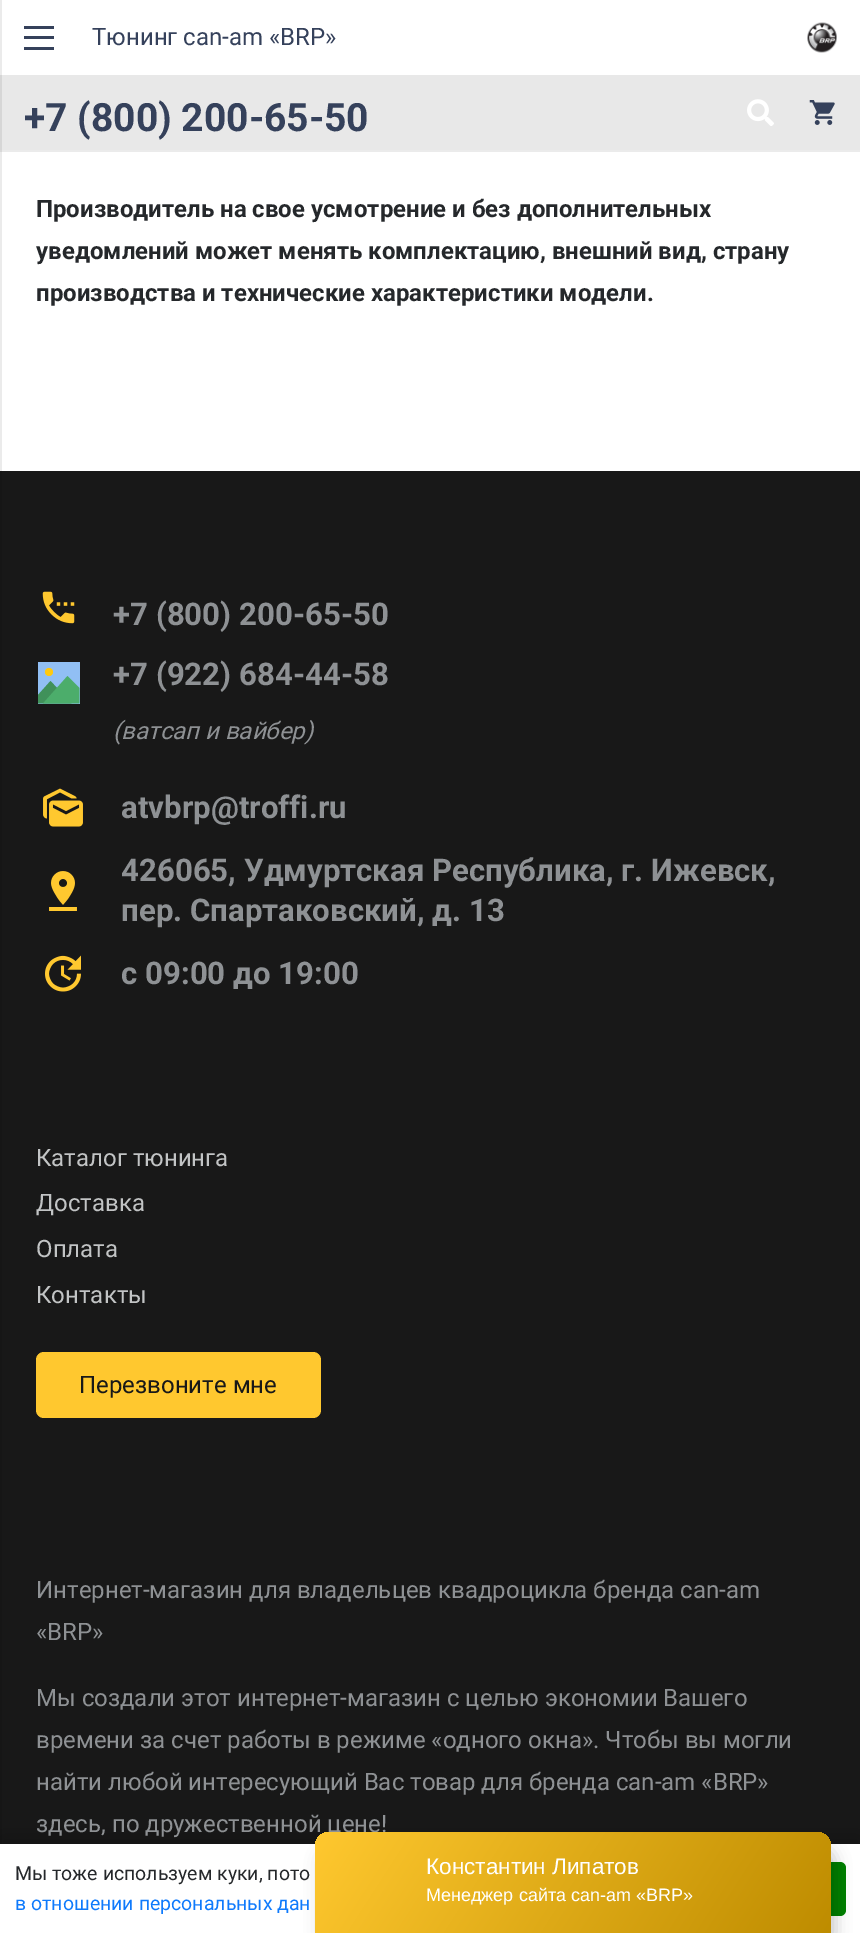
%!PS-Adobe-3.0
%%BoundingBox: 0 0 860 1933
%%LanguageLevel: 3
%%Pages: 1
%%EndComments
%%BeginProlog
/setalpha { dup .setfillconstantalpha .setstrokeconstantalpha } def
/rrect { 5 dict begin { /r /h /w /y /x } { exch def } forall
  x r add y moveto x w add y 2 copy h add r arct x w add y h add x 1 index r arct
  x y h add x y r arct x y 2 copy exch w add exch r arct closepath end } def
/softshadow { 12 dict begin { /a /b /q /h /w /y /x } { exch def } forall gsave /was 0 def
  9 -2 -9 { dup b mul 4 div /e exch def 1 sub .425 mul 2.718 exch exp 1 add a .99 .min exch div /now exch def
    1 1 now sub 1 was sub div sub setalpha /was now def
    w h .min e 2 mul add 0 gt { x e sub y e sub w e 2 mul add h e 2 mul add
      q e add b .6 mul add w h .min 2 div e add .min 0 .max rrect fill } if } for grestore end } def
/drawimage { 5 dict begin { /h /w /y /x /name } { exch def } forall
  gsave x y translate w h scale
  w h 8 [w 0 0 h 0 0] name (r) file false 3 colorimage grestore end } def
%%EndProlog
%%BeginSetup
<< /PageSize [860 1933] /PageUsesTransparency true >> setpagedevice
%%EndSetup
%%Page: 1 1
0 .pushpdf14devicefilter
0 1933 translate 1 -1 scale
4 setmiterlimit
1 setgray
0 0 860 1933 rectfill
0.08 setalpha
0 setgray
0 150 860 2 rectfill
1 setalpha
0.91 setgray
0 75 860 75 rectfill
0.094 setgray
0 471 860 1373 rectfill
0.08 setalpha
0 setgray
newpath -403 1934 moveto 2 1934 lineto 2 0 lineto 0 0 lineto 0 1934 lineto closepath fill
1 setalpha
0.208 0.255 0.357 setrgbcolor
24 36 30 3 rectfill
24 26 30 3 rectfill
24 47 30 3 rectfill
(images/1.raw) 807 22 30 31 drawimage
(images/2.raw) 747 99 27 27 drawimage
(images/3.raw) 809 100 26 25 drawimage
(images/4.raw) 42 591 33 33 drawimage
0.569 0.749 0.957 setrgbcolor
38 662 42 42 rectfill
gsave
38 662 42 42 rectclip
0.251 0.569 0.353 setrgbcolor
newpath 71.5 703.5 moveto 37.5 703.5 lineto 37.5 695.5 lineto 50.5 681 lineto closepath fill
grestore
0.298 0.678 0.42 setrgbcolor
newpath 79.5 688 moveto 79.5 703.5 lineto 43 703.5 lineto 67.5 676 lineto closepath fill
1 0.788 0.059 setrgbcolor
newpath 49 672 4 0 360 arc closepath fill
(images/5.raw) 43 788 40 39 drawimage
(images/6.raw) 49 871 28 40 drawimage
(images/7.raw) 45 955 36 37 drawimage
1 0.784 0.184 setrgbcolor
36 1352 285 66 8 rrect fill
0 setgray
0 1836 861 90 0 11 0.15 softshadow
1 setgray
0 1844 860 89 rectfill
0 0.502 0 setrgbcolor
753 1862 93 54 6 rrect fill
0 setgray
320 1847 516 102 15 7.5 0.2 softshadow
/Roboto-Regular [24 0 0 -24 0 0] selectfont
0.208 0.255 0.357 setrgbcolor
92 45 moveto (Тюнинг can-am «BRP») show
/Roboto-Bold [39 0 0 -39 0 0] selectfont
24 131 moveto (+7 \(800\) 200-65-50) show
/Roboto-Bold [24 0 0 -24 0 0] selectfont
0.145 0.157 0.169 setrgbcolor
36 217 moveto (Производитель на свое усмотрение и без дополнительных) show
36 259 moveto (уведомлений может менять комплектацию, внешний вид, страну) show
36 301 moveto (производства и технические характеристики модели.) show
/Roboto-Bold [31.2 0 0 -31.2 0 0] selectfont
0.557 0.569 0.58 setrgbcolor
113 625 moveto (+7 \(800\) 200-65-50) show
113 685 moveto (+7 \(922\) 684-44-58) show
/Roboto-Italic [24 0 0 -24 0 0] selectfont
113 739 moveto (\(ватсап и вайбер\)) show
/Roboto-Bold [31.2 0 0 -31.2 0 0] selectfont
121 818 moveto (atvbrp@troffi.ru) show
121 881 moveto (426065, Удмуртская Республика, г. Ижевск,) show
121 921 moveto (пер. Спартаковский, д. 13) show
121 984 moveto (с 09:00 до 19:00) show
/Roboto-Regular [24 0 0 -24 0 0] selectfont
0.761 0.769 0.773 setrgbcolor
36 1166 moveto (Каталог тюнинга) show
36 1211 moveto (Доставка) show
36 1257 moveto (Оплата) show
36 1303 moveto (Контакты) show
0.094 setgray
79 1393 moveto (Перезвоните мне) show
0.557 0.569 0.58 setrgbcolor
36 1598 moveto (Интернет-магазин для владельцев квадроцикла бренда can-am) show
36 1640 moveto («BRP») show
36 1706 moveto (Мы создали этот интернет-магазин с целью экономии Вашего) show
36 1748 moveto (времени за счет работы в режиме «одного окна». Чтобы вы могли) show
36 1790 moveto (найти любой интересующий Вас товар для бренда can-am «BRP») show
36 1832 moveto (здесь, по дружественной цене!) show
/Roboto-Regular [19.5 0 0 -19.5 0 0] selectfont
0.145 0.157 0.169 setrgbcolor
15 1880 moveto (Мы тоже используем куки, пото) show
0.059 0.478 0.988 setrgbcolor
15 1910 moveto (в отношении персональных дан) show
gsave newpath 330 1832 moveto 816 1832 lineto 824.5 1832 831 1838.5 831 1847 curveto 831 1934 lineto 315 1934 lineto 315 1847 lineto 315 1838.5 321.5 1832 330 1832 curveto closepath clip newpath
<< /ShadingType 2 /ColorSpace /DeviceRGB /Coords [778 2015 368 1750] /Extend [true true] /Function << /FunctionType 2 /Domain [0 1] /C0 [0.745 0.549 0] /C1 [1 0.784 0.184] /N 1 >> >> shfill grestore
/LiberationSans-Regular [22.5 0 0 -22.5 0 0] selectfont
1 setgray
426 1874 moveto (Константин Липатов) show
/LiberationSans-Regular [18 0 0 -18 0 0] selectfont
426 1901 moveto (Менеджер сайта can-am «BRP») show
.poppdf14devicefilter showpage
%%EOF
